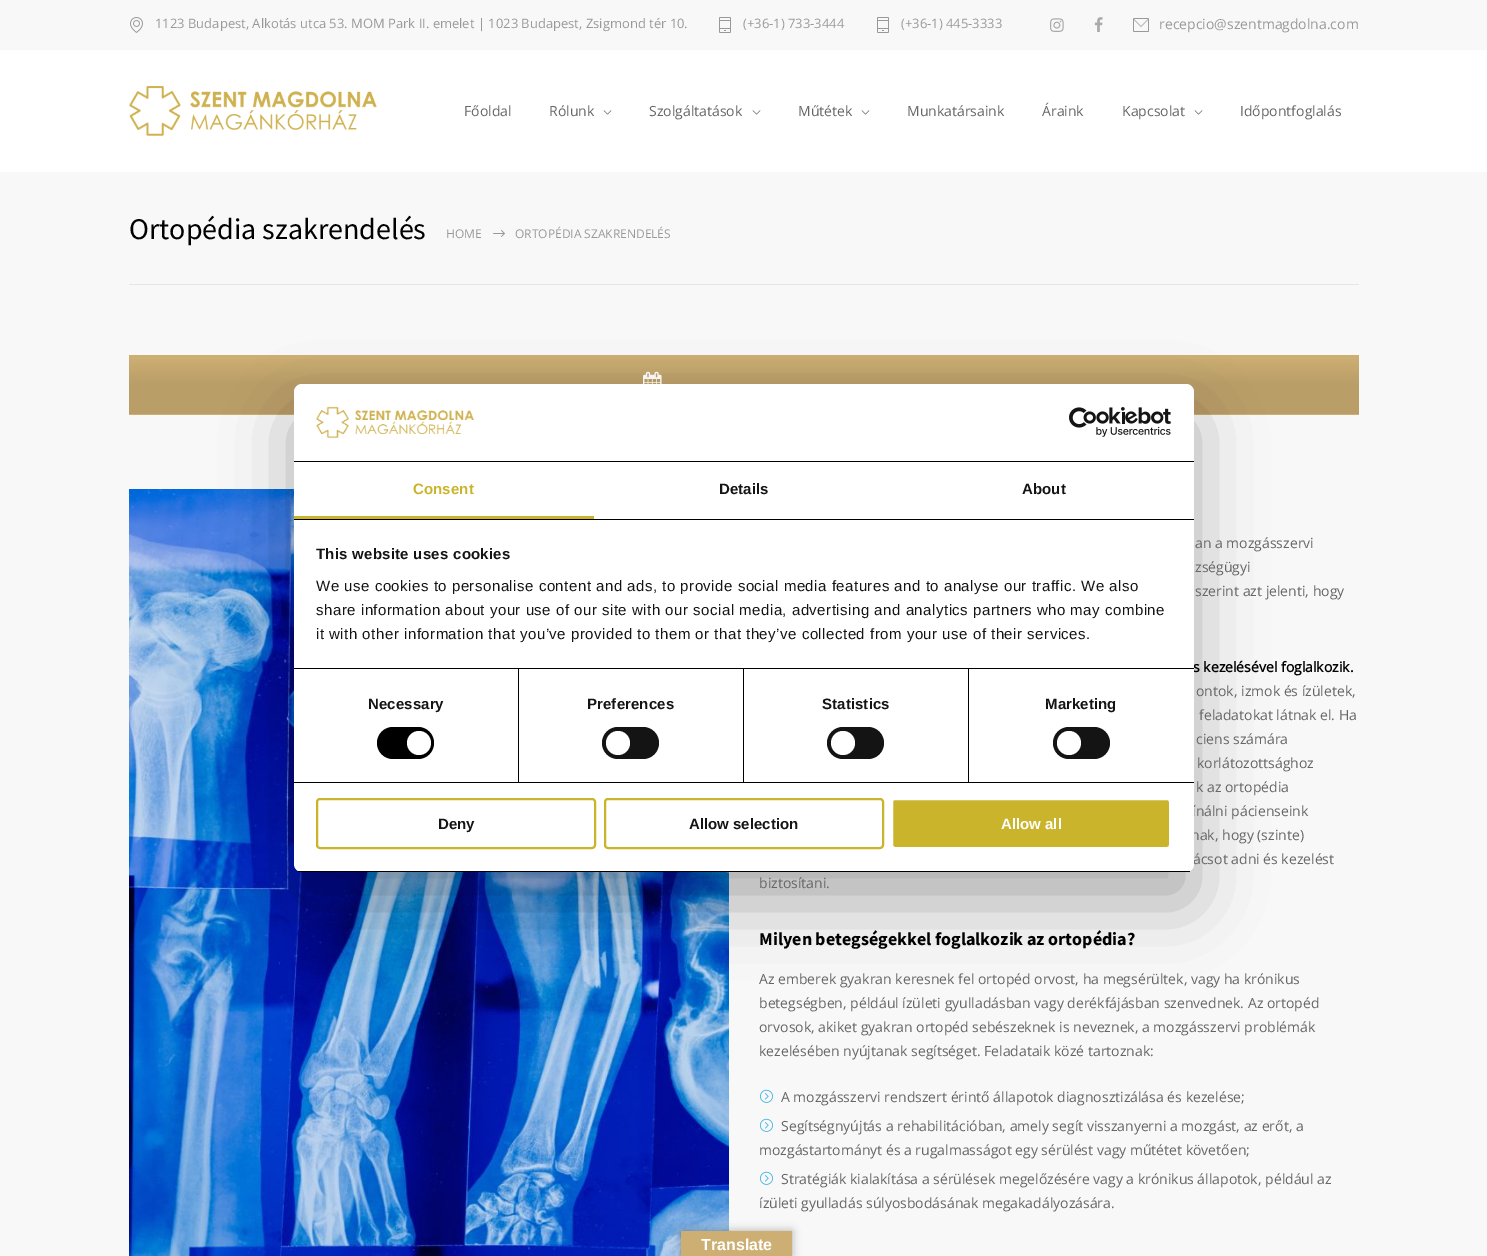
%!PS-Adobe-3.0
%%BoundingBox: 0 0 1487 1256
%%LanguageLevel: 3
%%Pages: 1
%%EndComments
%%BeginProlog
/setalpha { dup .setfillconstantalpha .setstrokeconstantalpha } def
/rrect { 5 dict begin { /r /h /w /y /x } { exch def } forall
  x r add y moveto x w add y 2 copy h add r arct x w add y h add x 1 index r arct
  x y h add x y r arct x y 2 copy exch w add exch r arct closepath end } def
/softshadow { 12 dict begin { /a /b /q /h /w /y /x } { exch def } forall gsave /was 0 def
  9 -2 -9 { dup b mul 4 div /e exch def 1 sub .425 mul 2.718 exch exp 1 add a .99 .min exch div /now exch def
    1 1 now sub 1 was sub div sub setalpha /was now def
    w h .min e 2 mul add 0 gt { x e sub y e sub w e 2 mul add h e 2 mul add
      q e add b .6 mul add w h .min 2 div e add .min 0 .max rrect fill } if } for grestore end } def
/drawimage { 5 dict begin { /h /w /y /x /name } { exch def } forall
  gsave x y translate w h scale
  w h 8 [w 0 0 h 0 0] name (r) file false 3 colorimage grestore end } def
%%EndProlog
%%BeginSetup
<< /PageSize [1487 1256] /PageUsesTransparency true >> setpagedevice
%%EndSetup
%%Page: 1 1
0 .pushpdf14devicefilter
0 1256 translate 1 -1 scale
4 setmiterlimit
0.973 setgray
0 0 1487 1256 rectfill
(images/1.raw) 130 17 13 16 drawimage
(images/2.raw) 719 17 12 16 drawimage
(images/2.raw) 877 17 12 16 drawimage
(images/3.raw) 1050 18 14 14 drawimage
(images/4.raw) 1094 17 9 15 drawimage
(images/5.raw) 1133 18 16 14 drawimage
1 setgray
0 50 1487 122 rectfill
(images/6.raw) 129 86 248 50 drawimage
(images/7.raw) 603 110 9 5 drawimage
(images/7.raw) 752 110 9 5 drawimage
(images/7.raw) 861 110 9 5 drawimage
(images/7.raw) 1194 110 9 5 drawimage
0.898 setgray
129 284 1230 1 rectfill
(images/8.raw) 493 230 12 7 drawimage
0.808 0.686 0.451 setrgbcolor
129 355 1230 60 rectfill
gsave newpath 129 359 moveto 1359 359 lineto 1359 414 lineto 129 414 lineto closepath clip newpath
<< /ShadingType 2 /ColorSpace /DeviceRGB /Coords [1358 356 1358 414] /Extend [true true] /Function << /FunctionType 3 /Domain [0 1] /Functions [<< /FunctionType 2 /Domain [0 1] /C0 [0.808 0.686 0.451] /C1 [0.725 0.62 0.408] /N 1 >> << /FunctionType 2 /Domain [0 1] /C0 [0.725 0.62 0.408] /C1 [0.725 0.62 0.408] /N 1 >>] /Bounds [0.5] /Encode [0 1 0 1] >> >> shfill grestore
(images/9.raw) 643 371 19 13 drawimage
(images/10.raw) 129 489 600 767 drawimage
(images/11.raw) 759 1089 14 14 drawimage
(images/11.raw) 759 1118 14 14 drawimage
(images/11.raw) 759 1171 14 14 drawimage
0 setgray
294 416 900 488 8 34 0.3 softshadow
681 1231 111 25 0 4.5 0.3 softshadow
0.808 0.686 0.451 setrgbcolor
681 1231 111 25 rectfill
/OpenSans-Regular [13 0 0 -13 0 0] selectfont
0.6 setgray
155 28 moveto (1123 Budapest, Alkotás utca 53. MOM Park II. emelet | 1023 Budapest, Zsigmond tér 10.) show
743 28 moveto (\(+36-1\) 733-3444) show
901 28 moveto (\(+36-1\) 445-3333) show
/OpenSans-Regular [14 0 0 -14 0 0] selectfont
1159 29 moveto (recepcio@szentmagdolna.com) show
0.4 setgray
464 116 moveto (Főoldal) show
549 116 moveto (Rólunk) show
649 116 moveto (Szolgáltatások) show
798 116 moveto (Műtétek) show
907 116 moveto (Munkatársaink) show
1042 116 moveto (Áraink) show
1122 116 moveto (Kapcsolat) show
1240 116 moveto (Időpontfoglalás) show
/SourceSansPro-Regular [30 0 0 -30 0 0] selectfont
0 setgray
129 239 moveto (Ortopédia szakrendelés) show
/OpenSans-Regular [12 0 0 -12 0 0] selectfont
0.6 setgray
446 238 moveto (HOME) show
515 238 moveto (ORTOPÉDIA SZAKRENDELÉS) show
/OpenSans-Regular [14 0 0 -14 0 0] selectfont
0.4 setgray
1195 548 moveto (an a mozgásszervi) show
1195 572 moveto (zségügyi) show
1195 596 moveto (szerint azt jelenti, hogy) show
/OpenSans-Bold [14 0 0 -14 0 0] selectfont
0 setgray
1193 672 moveto (s kezelésével foglalkozik.) show
/OpenSans-Regular [14 0 0 -14 0 0] selectfont
0.4 setgray
1196 696 moveto (ontok, izmok és ízületek,) show
1199 720 moveto (feladatokat látnak el. Ha) show
1196 744 moveto (ciens számára) show
1197 768 moveto (korlátozottsághoz) show
1196 792 moveto (k az ortopédia) show
1192 816 moveto (ínálni pácienseink) show
1191 840 moveto (nak, hogy \(szinte\)) show
1193 864 moveto (ácsot adni és kezelést) show
759 888 moveto (biztosítani.) show
/SourceSansPro-Bold [18 0 0 -18 0 0] selectfont
0 setgray
759 945 moveto (Milyen betegségekkel foglalkozik az ortopédia?) show
/OpenSans-Regular [14 0 0 -14 0 0] selectfont
0.4 setgray
759 984 moveto (Az emberek gyakran keresnek fel ortopéd orvost, ha megsérültek, vagy ha krónikus) show
759 1008 moveto (betegségben, például ízületi gyulladásban vagy derékfájásban szenvednek. Az ortopéd) show
759 1032 moveto (orvosok, akiket gyakran ortopéd sebészeknek is neveznek, a mozgásszervi problémák) show
759 1056 moveto (kezelésében nyújtanak segítséget. Feladataik közé tartoznak:) show
781 1102 moveto (A mozgásszervi rendszert érintő állapotok diagnosztizálása és kezelése;) show
781 1131 moveto (Segítségnyújtás a rehabilitációban, amely segít visszanyerni a mozgást, az erőt, a) show
759 1155 moveto (mozgástartományt és a rugalmasságot egy sérülést vagy műtétet követően;) show
781 1184 moveto (Stratégiák kialakítása a sérülések megelőzésére vagy a krónikus állapotok, például az) show
759 1208 moveto (ízületi gyulladás súlyosbodásának megakadályozására.) show
1 setgray
294 384 900 488 8 rrect fill
0 setgray
294 461 900 1 rectfill
(images/12.raw) 316 406 158 33 drawimage
(images/13.raw) 1069 407 102 30 drawimage
294 519 900 1 rectfill
0.788 0.706 0.169 setrgbcolor
294 516 300 3 rectfill
/LiberationSans-Bold [15 0 0 -15 0 0] selectfont
413 494 moveto 0.1 0 (Consent) ashow
0.078 setgray
719 494 moveto 0.1 0 (Details) ashow
1022 494 moveto 0.1 0 (About) ashow
0 setgray
294 668 900 1 rectfill
0.078 setgray
316 559 moveto 0.25 0 (This website uses cookies) ashow
/LiberationSans-Regular [15 0 0 -15 0 0] selectfont
316 591 moveto 0.5 0 (We use cookies to personalise content and ads, to provide social media features and to analyse our traffic. We also) ashow
316 615 moveto 0.5 0 (share information about your use of our site with our social media, advertising and analytics partners who may combine) ashow
316 639 moveto 0.5 0 (it with other information that you’ve provided to them or that they’ve collected from your use of their services.) ashow
0 setgray
294 782 900 1 rectfill
518 669 1 113 rectfill
/LiberationSans-Bold [15 0 0 -15 0 0] selectfont
0.078 setgray
368 709 moveto 0.1 0 (Necessary) ashow
0 setgray
377 727 57 32 16 rrect fill
1 setgray
newpath 419 743 12 0 360 arc closepath fill
0 setgray
743 669 1 113 rectfill
0.078 setgray
587 709 moveto 0.1 0 (Preferences) ashow
602 727 57 32 16 rrect fill
1 setgray
newpath 618 743 12 0 360 arc closepath fill
0 setgray
968 669 1 113 rectfill
0.078 setgray
822 709 moveto 0.1 0 (Statistics) ashow
827 727 57 32 16 rrect fill
1 setgray
newpath 843 743 12 0 360 arc closepath fill
0.078 setgray
1045 709 moveto 0.1 0 (Marketing) ashow
1053 727 57 32 16 rrect fill
1 setgray
newpath 1069 743 12 0 360 arc closepath fill
gsave
294 384 900 488 8 rrect clip newpath
0 setgray
294 871 900 1 rectfill
grestore
0.788 0.706 0.169 setrgbcolor
2 setlinewidth
317 799 278 49 3 rrect stroke
0.078 setgray
438 829 moveto (Deny) show
0.788 0.706 0.169 setrgbcolor
605 799 278 49 3 rrect stroke
0.078 setgray
689 829 moveto (Allow selection) show
0.788 0.706 0.169 setrgbcolor
892 799 278 49 3 rrect gsave fill grestore
1 setgray
stroke
1001 829 moveto (Allow all) show
/LiberationSans-Bold [16 0 0 -16 0 0] selectfont
701 1250 moveto (Translate) show
.poppdf14devicefilter showpage
%%EOF
